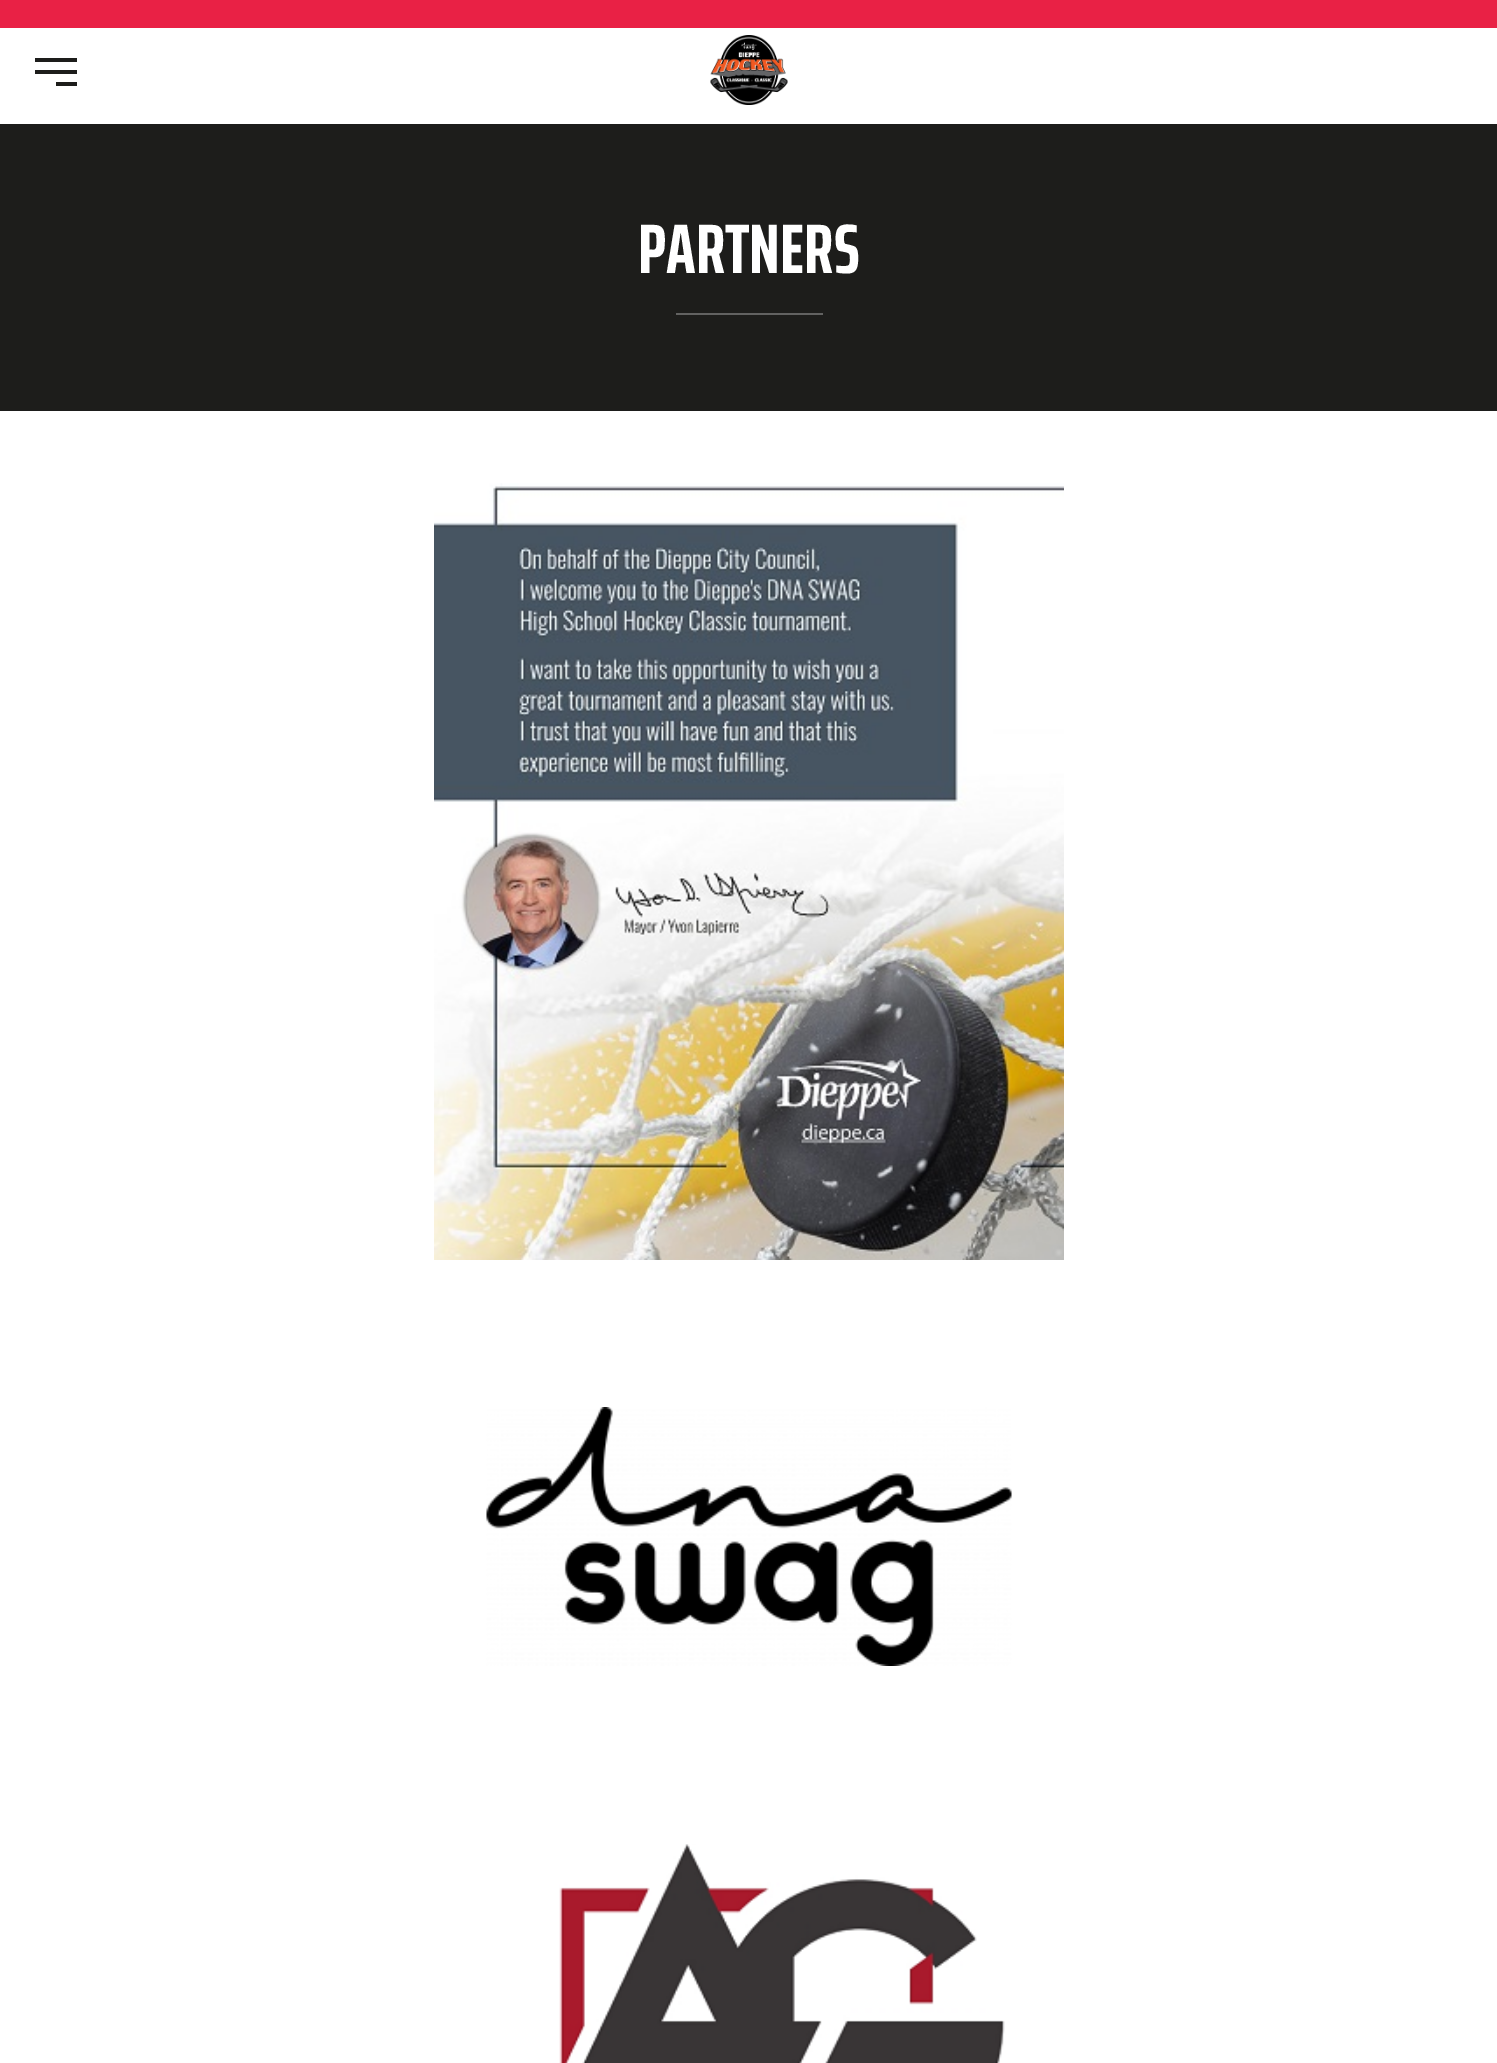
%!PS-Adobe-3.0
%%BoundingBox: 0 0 1497 2063
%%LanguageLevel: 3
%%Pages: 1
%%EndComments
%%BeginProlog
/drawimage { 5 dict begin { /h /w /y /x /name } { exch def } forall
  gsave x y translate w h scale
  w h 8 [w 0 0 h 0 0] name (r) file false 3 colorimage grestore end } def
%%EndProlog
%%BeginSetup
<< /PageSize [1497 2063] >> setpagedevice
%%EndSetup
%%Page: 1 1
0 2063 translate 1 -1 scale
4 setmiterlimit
0.914 0.129 0.271 setrgbcolor
0 0 1497 2063 rectfill
1 setgray
0 28 1497 96 rectfill
0.114 0.114 0.106 setrgbcolor
35 58 42 4 rectfill
35 70 42 4 rectfill
56 82 21 4 rectfill
(images/1.raw) 710 35 78 70 drawimage
1 setgray
0 411 1497 1652 rectfill
0.114 0.114 0.106 setrgbcolor
0 124 1497 287 rectfill
0.384 0.384 0.38 setrgbcolor
676 313 147 2 rectfill
(images/2.raw) 434 483 630 777 drawimage
(images/3.raw) 486 1407 526 259 drawimage
(images/4.raw) 559 1844 446 219 drawimage
/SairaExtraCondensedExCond-Bold [70 0 0 -70 0 0] selectfont
1 setgray
638 273 moveto (PARTNERS) show
showpage
%%EOF
